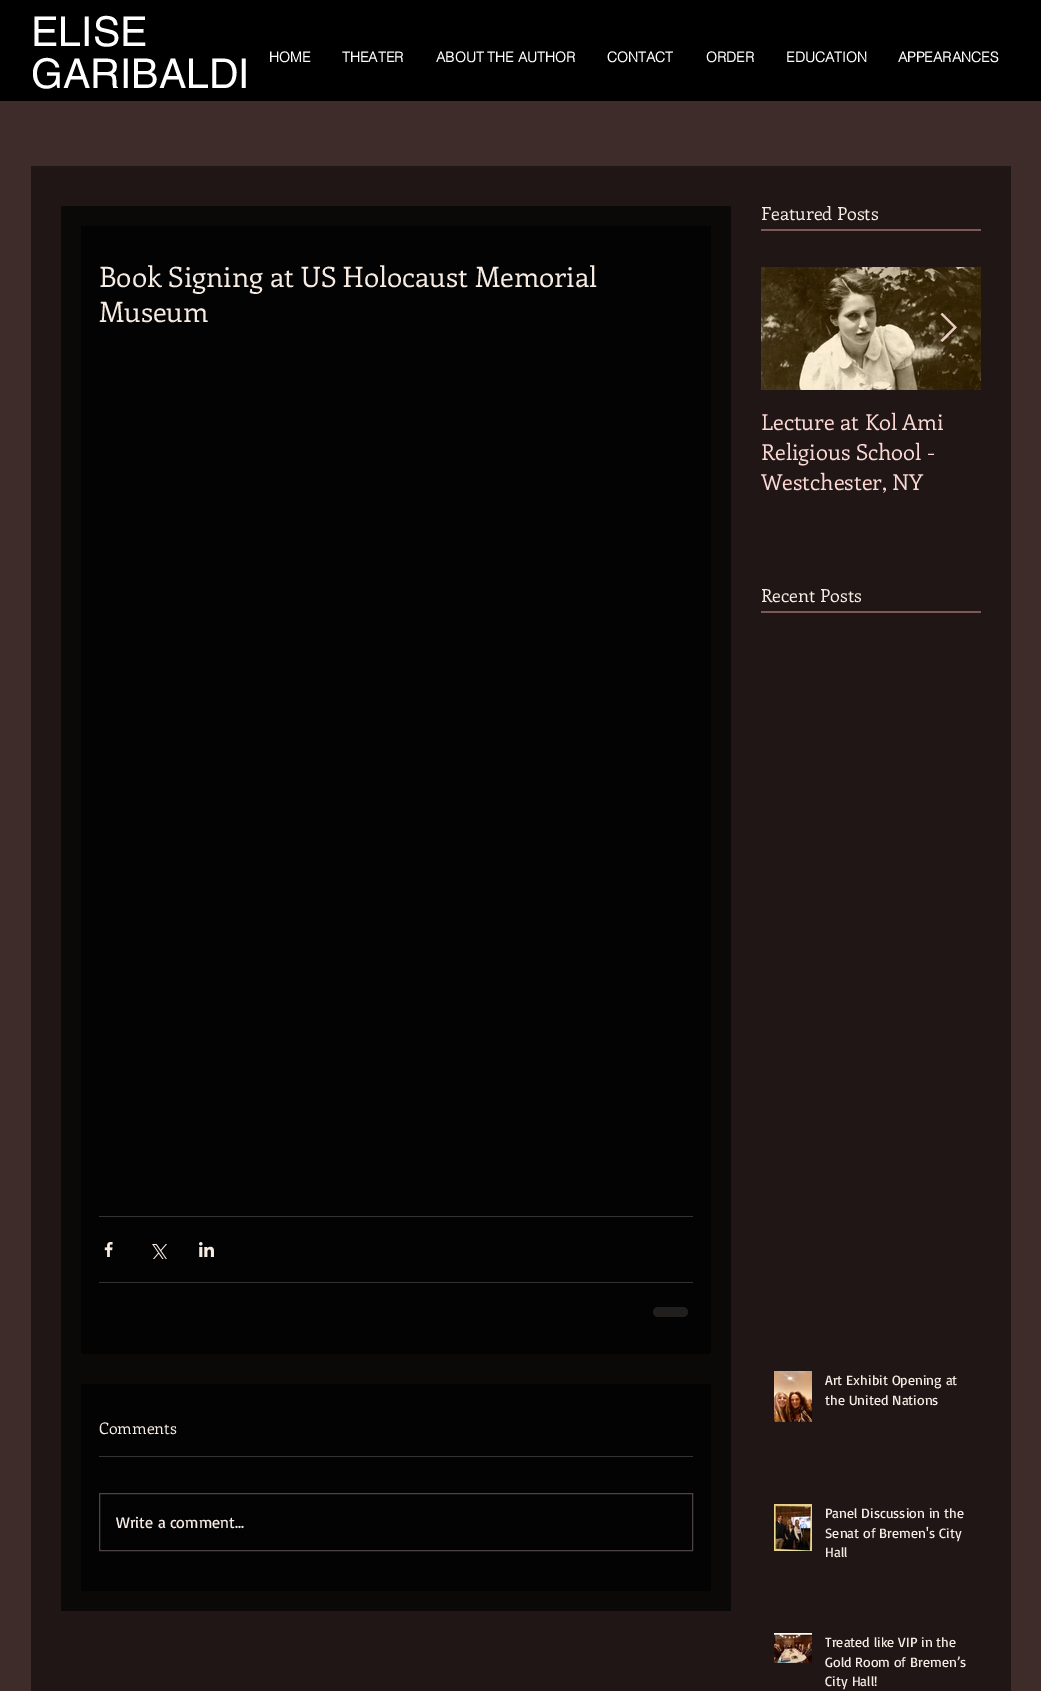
%!PS-Adobe-3.0
%%BoundingBox: 0 0 1041 1691
%%LanguageLevel: 3
%%Pages: 1
%%EndComments
%%BeginProlog
/rrect { 5 dict begin { /r /h /w /y /x } { exch def } forall
  x r add y moveto x w add y 2 copy h add r arct x w add y h add x 1 index r arct
  x y h add x y r arct x y 2 copy exch w add exch r arct closepath end } def
/drawimage { 5 dict begin { /h /w /y /x /name } { exch def } forall
  gsave x y translate w h scale
  w h 8 [w 0 0 h 0 0] name (r) file false 3 colorimage grestore end } def
%%EndProlog
%%BeginSetup
<< /PageSize [1041 1691] >> setpagedevice
%%EndSetup
%%Page: 1 1
0 1691 translate 1 -1 scale
4 setmiterlimit
0.239 0.173 0.165 setrgbcolor
0 0 1041 1691 rectfill
0 setgray
0 0 1041 101 rectfill
0.122 0.086 0.082 setrgbcolor
31 166 980 1525 rectfill
0.482 0.349 0.333 setrgbcolor
761 229 220 2 rectfill
0.043 0.031 0.031 setrgbcolor
61 206 670 1405 rectfill
0.016 0.012 0.012 setrgbcolor
81 226 630 1128 rectfill
0.208 0.196 0.188 setrgbcolor
99 1216 594 1 rectfill
(images/1.raw) 104 1242 9 15 drawimage
(images/2.raw) 152 1244 15 15 drawimage
(images/3.raw) 199 1242 15 15 drawimage
99 1282 594 1 rectfill
0.129 0.122 0.118 setrgbcolor
653 1307 35 10 5 rrect fill
0.016 0.012 0.012 setrgbcolor
81 1384 630 207 rectfill
0.208 0.196 0.188 setrgbcolor
99 1456 594 1 rectfill
0.306 0.263 0.259 setrgbcolor
99.5 1493.5 593 57 rectstroke
(images/5.raw) 761 267 220 123 drawimage
(images/4.raw) 940 313 17 29 drawimage
0.482 0.349 0.333 setrgbcolor
761 611 220 2 rectfill
(images/6.raw) 774 1371 38 51 drawimage
(images/7.raw) 774 1504 38 47 drawimage
(images/8.raw) 774 1633 38 30 drawimage
/helvetica-Regular [41 0 0 -41 0 0] selectfont
1 setgray
31 46 moveto (ELISE) show
31 88 moveto (GARIBALDI) show
/helvetica-Bold [14 0 0 -14 0 0] selectfont
269 62 moveto (HOME) show
342 62 moveto (THEATER) show
436 62 moveto (ABOUT THE AUTHOR) show
607 62 moveto (CONTACT) show
706 62 moveto (ORDER) show
786 62 moveto (EDUCATION) show
898 62 moveto (APPEARANCES) show
/Enriqueta-Regular [18 0 0 -18 0 0] selectfont
0.969 0.925 0.894 setrgbcolor
761 220 moveto (Featured Posts) show
/Enriqueta-Regular [28 0 0 -28 0 0] selectfont
99 287 moveto (Book Signing at US Holocaust Memorial) show
99 322 moveto (Museum) show
/Enriqueta-Regular [16 0 0 -16 0 0] selectfont
99 1434 moveto (Comments) show
gsave
116 1510 560 24 rectclip
/Basic-Regular [16 0 0 -16 0 0] selectfont
116 1528 moveto (Write a comment...) show
grestore
/Enriqueta-Regular [22 0 0 -22 0 0] selectfont
0.984 0.847 0.831 setrgbcolor
761 430 moveto (Lecture at Kol Ami) show
761 460 moveto (Religious School -) show
761 490 moveto (Westchester, NY) show
/Enriqueta-Regular [18 0 0 -18 0 0] selectfont
0.969 0.925 0.894 setrgbcolor
761 602 moveto (Recent Posts) show
/Basic-Regular [14 0 0 -14 0 0] selectfont
825 1385 moveto (Art Exhibit Opening at) show
825 1405 moveto (the United Nations) show
825 1518 moveto (Panel Discussion in the) show
825 1538 moveto (Senat of Bremen's City) show
825 1557 moveto (Hall) show
825 1647 moveto (Treated like VIP in the) show
825 1667 moveto (Gold Room of Bremen’s) show
825 1686 moveto (City Hall!) show
showpage
%%EOF
